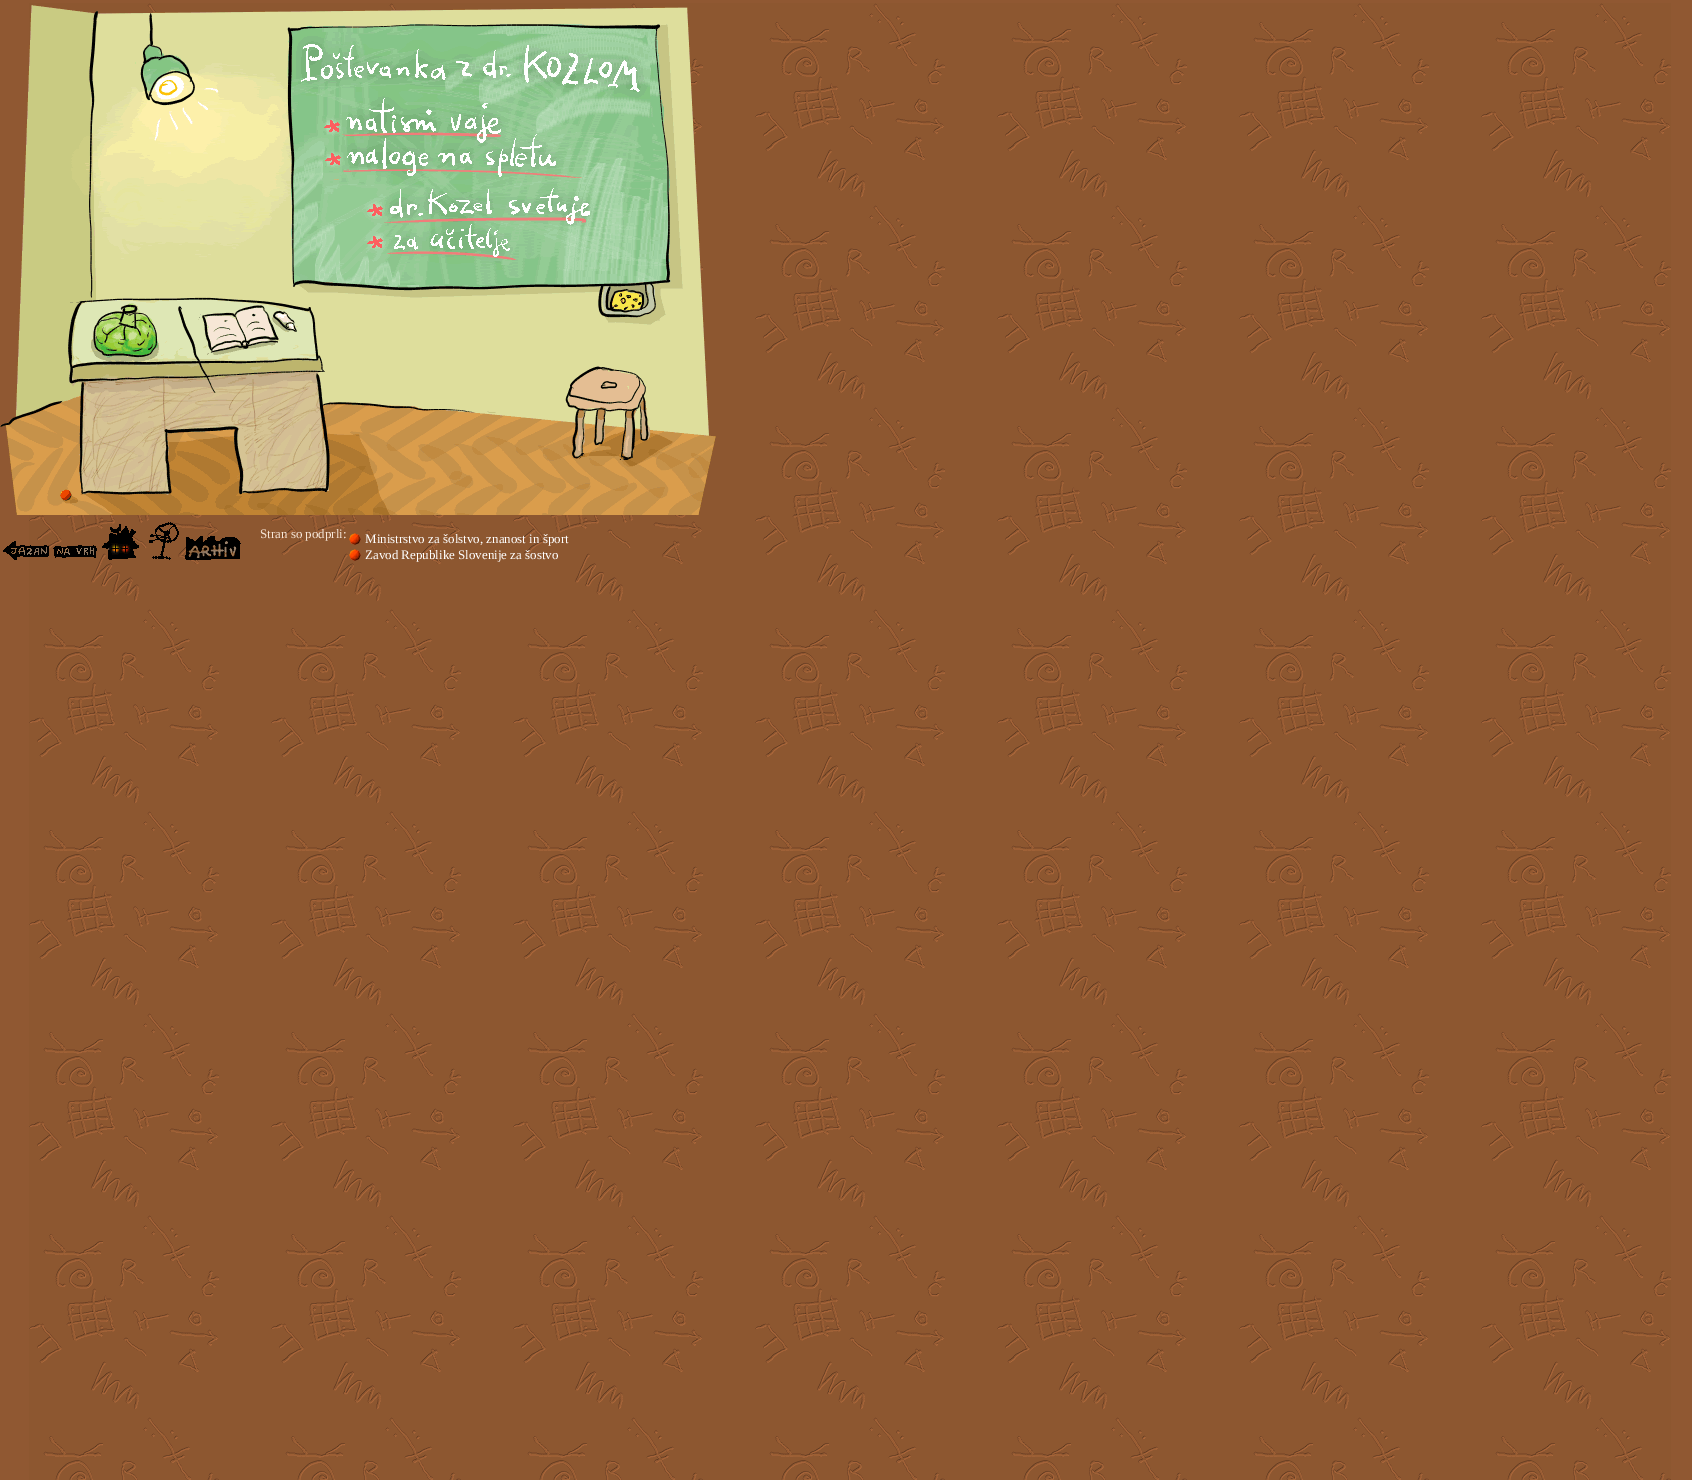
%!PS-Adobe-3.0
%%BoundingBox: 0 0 1692 1480
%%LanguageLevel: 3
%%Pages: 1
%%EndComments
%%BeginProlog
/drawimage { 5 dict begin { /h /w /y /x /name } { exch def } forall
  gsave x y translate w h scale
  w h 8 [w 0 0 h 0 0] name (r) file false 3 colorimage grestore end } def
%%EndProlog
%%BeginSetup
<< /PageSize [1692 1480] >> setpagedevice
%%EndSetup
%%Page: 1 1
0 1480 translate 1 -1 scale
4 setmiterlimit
0.565 0.345 0.196 setrgbcolor
0 0 1692 1480 rectfill
(images/1.raw) 29 3 1642 1477 drawimage
(images/2.raw) 0 5 716 510 drawimage
(images/3.raw) 3 541 46 19 drawimage
(images/4.raw) 53 545 44 13 drawimage
(images/5.raw) 102 524 37 36 drawimage
(images/6.raw) 149 522 30 38 drawimage
(images/7.raw) 185 536 56 24 drawimage
(images/8.raw) 349 533 12 12 drawimage
(images/8.raw) 349 549 12 12 drawimage
/LiberationSerif-Regular [13 0 0 -13 0 0] selectfont
0.969 0.902 0.843 setrgbcolor
260 538 moveto (Stran so podprli:) show
1 setgray
365 543 moveto (Ministrstvo za šolstvo, znanost in šport) show
365 559 moveto (Zavod Republike Slovenije za šostvo) show
showpage
%%EOF
